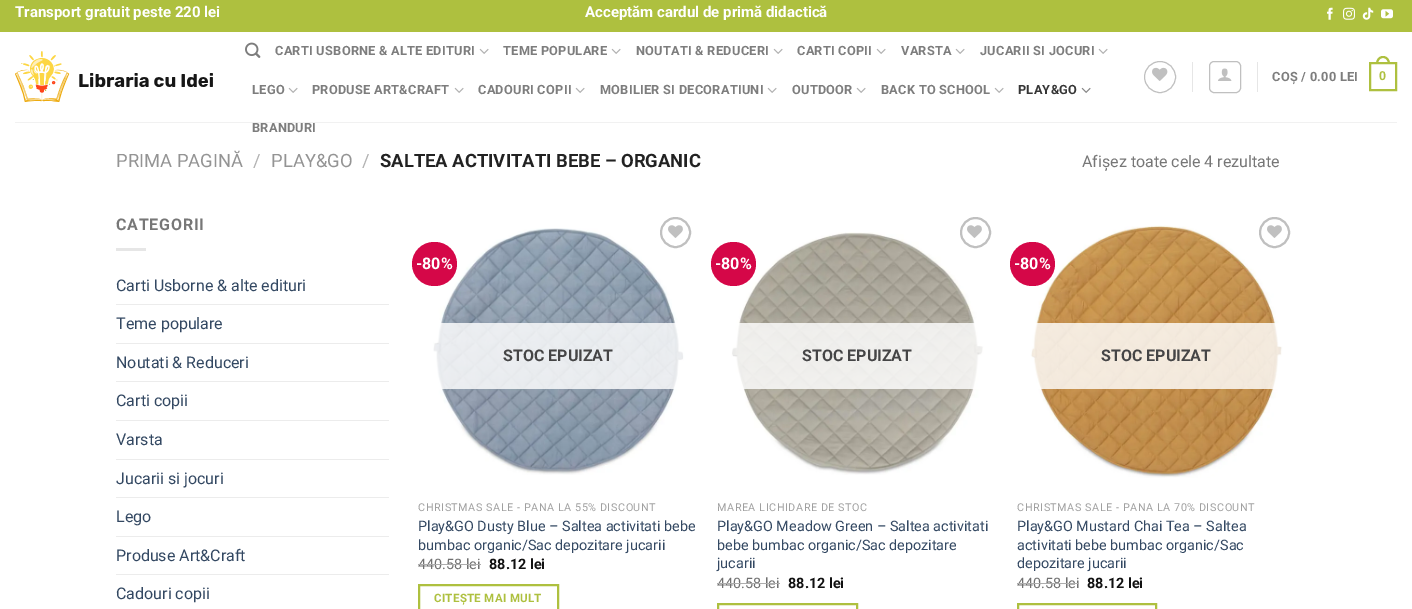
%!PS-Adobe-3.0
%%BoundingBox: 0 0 1412 609
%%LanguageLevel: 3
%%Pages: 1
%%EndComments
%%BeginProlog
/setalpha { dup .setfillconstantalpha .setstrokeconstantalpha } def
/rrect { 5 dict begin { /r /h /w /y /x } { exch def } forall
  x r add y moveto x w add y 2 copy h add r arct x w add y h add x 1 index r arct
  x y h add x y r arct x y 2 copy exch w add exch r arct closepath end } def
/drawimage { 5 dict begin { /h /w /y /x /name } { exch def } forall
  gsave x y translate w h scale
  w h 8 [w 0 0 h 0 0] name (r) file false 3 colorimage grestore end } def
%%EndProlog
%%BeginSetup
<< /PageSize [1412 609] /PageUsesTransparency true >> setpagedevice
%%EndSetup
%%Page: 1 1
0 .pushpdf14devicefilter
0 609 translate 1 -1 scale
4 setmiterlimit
1 setgray
0 0 1412 609 rectfill
0.682 0.753 0.247 setrgbcolor
0 0 1412 32 rectfill
(images/1.raw) 1327 7 6 13 drawimage
(images/2.raw) 1343 7 12 13 drawimage
(images/3.raw) 1362 7 12 13 drawimage
(images/4.raw) 1381 9 12 10 drawimage
(images/5.raw) 15 51 198 51 drawimage
(images/6.raw) 245 42 16 16 drawimage
(images/7.raw) 479 48 10 6 drawimage
(images/7.raw) 611 48 10 6 drawimage
(images/7.raw) 773 48 10 6 drawimage
(images/7.raw) 876 48 10 6 drawimage
(images/7.raw) 955 48 10 6 drawimage
(images/7.raw) 1098 48 10 6 drawimage
(images/7.raw) 288 87 10 6 drawimage
(images/7.raw) 454 87 10 6 drawimage
(images/7.raw) 575 87 10 6 drawimage
(images/7.raw) 767 87 10 6 drawimage
(images/7.raw) 856 87 10 6 drawimage
(images/7.raw) 994 87 10 6 drawimage
(images/8.raw) 1081 87 10 6 drawimage
0.753 setgray
newpath 1160 77 15.5 0 360 arc closepath stroke
(images/9.raw) 1152 67 16 14 drawimage
0.902 setgray
1192 62 1 30 rectfill
0.753 setgray
1209.5 61.5 31 31 4.5 rrect stroke
(images/10.raw) 1218 68 14 13 drawimage
0.902 setgray
1257 62 1 30 rectfill
0.682 0.753 0.247 setrgbcolor
2 setlinewidth
1370 63 26 27 rectstroke
newpath 1383 56 moveto 1387.5 56 1390 60 1390 64 curveto 1376 64 lineto 1376 60 1378.5 56 1383 56 curveto closepath 1383 58 moveto 1386.5 58 1388 61 1388 64 curveto 1378 64 lineto 1378 61 1379.5 58 1383 58 curveto closepath eofill
0.1 setalpha
0.467 setgray
15 122 1382 1 rectfill
1 setalpha
0.902 setgray
116 248 30 3 rectfill
0.925 setgray
116 304 273 1 rectfill
116 343 273 1 rectfill
116 381 273 1 rectfill
116 420 273 1 rectfill
116 459 273 1 rectfill
116 497 273 1 rectfill
116 536 273 1 rectfill
116 574 273 1 rectfill
(images/12.raw) 433 228 252 247 drawimage
0.835 0.027 0.282 setrgbcolor
412 242 45 44 22 rrect fill
0.753 setgray
newpath 675.5 232.5 14.5 0 360 arc closepath stroke
(images/11.raw) 668 225 15 13 drawimage
0.81 setalpha
1 setgray
433 323 252 66 rectfill
1 setalpha
0.682 0.753 0.247 setrgbcolor
419 585 139 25 rectstroke
(images/13.raw) 731 232 253 243 drawimage
0.835 0.027 0.282 setrgbcolor
711 242 45 44 22 rrect fill
0.753 setgray
newpath 975.5 232.5 14.5 0 360 arc closepath stroke
(images/11.raw) 967 225 15 13 drawimage
0.81 setalpha
1 setgray
731 323 253 66 rectfill
1 setalpha
0.682 0.753 0.247 setrgbcolor
718 604 139 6 rectstroke
(images/14.raw) 1030 225 253 253 drawimage
0.835 0.027 0.282 setrgbcolor
1010 242 45 44 22 rrect fill
0.753 setgray
newpath 1274.5 232.5 14.5 0 360 arc closepath stroke
(images/11.raw) 1267 225 15 13 drawimage
0.81 setalpha
1 setgray
1030 323 253 66 rectfill
1 setalpha
0.682 0.753 0.247 setrgbcolor
1018 604 138 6 rectstroke
/Roboto-Bold [15 0 0 -15 0 0] selectfont
1 setgray
15 17 moveto (Transport gratuit peste 220 lei) show
585 17 moveto (Acceptăm cardul de primă didactică) show
/Roboto-Bold [12.75 0 0 -12.75 0 0] selectfont
0.49 setgray
275 55 moveto 0.25 0 (CARTI USBORNE & ALTE EDITURI) ashow
503 55 moveto 0.25 0 (TEME POPULARE) ashow
636 55 moveto 0.25 0 (NOUTATI & REDUCERI) ashow
797 55 moveto 0.25 0 (CARTI COPII) ashow
901 55 moveto 0.25 0 (VARSTA) ashow
980 55 moveto 0.25 0 (JUCARII SI JOCURI) ashow
252 94 moveto 0.25 0 (LEGO) ashow
312 94 moveto 0.25 0 (PRODUSE ART&CRAFT) ashow
478 94 moveto 0.25 0 (CADOURI COPII) ashow
600 94 moveto 0.25 0 (MOBILIER SI DECORATIUNI) ashow
792 94 moveto 0.25 0 (OUTDOOR) ashow
881 94 moveto 0.25 0 (BACK TO SCHOOL) ashow
0.212 setgray
1018 94 moveto 0.25 0 (PLAY&GO) ashow
0.49 setgray
252 132 moveto 0.25 0 (BRANDURI) ashow
1272 81 moveto 0.25 0 (COȘ / 0.00 LEI) ashow
/LiberationSans-Bold [12.75 0 0 -12.75 0 0] selectfont
0.682 0.753 0.247 setrgbcolor
1379 80 moveto 0.25 0 (0) ashow
/Roboto-Regular [18.4 0 0 -18.4 0 0] selectfont
0.58 setgray
116 167 moveto (PRIMA PAGINĂ) show
0.698 setgray
253 167 moveto (/) show
0.58 setgray
271 167 moveto (PLAY&GO) show
0.698 setgray
362 167 moveto (/) show
/Roboto-Bold [18.4 0 0 -18.4 0 0] selectfont
0.133 setgray
380 167 moveto (SALTEA ACTIVITATI BEBE – ORGANIC) show
/Roboto-Regular [16 0 0 -16 0 0] selectfont
0.467 setgray
1082 167 moveto (Afișez toate cele 4 rezultate) show
/Roboto-Bold [16 0 0 -16 0 0] selectfont
116 230 moveto 0.75 0 (CATEGORII) ashow
/Roboto-Regular [16 0 0 -16 0 0] selectfont
0.2 0.282 0.384 setrgbcolor
116 291 moveto (Carti Usborne & alte edituri) show
116 329 moveto (Teme populare) show
116 368 moveto (Noutati & Reduceri) show
116 406 moveto (Carti copii) show
116 445 moveto (Varsta) show
116 484 moveto (Jucarii si jocuri) show
116 522 moveto (Lego) show
116 561 moveto (Produse Art&Craft) show
116 599 moveto (Cadouri copii) show
/Roboto-Bold [16 0 0 -16 0 0] selectfont
1 setgray
416 269 moveto (-80%) show
0.271 0.271 0.275 setrgbcolor
503 361 moveto (STOC EPUIZAT) show
/Roboto-Regular [10.8 0 0 -10.8 0 0] selectfont
0.627 setgray
418 511 moveto 0.55 0 (CHRISTMAS SALE - PANA LA 55% DISCOUNT) ashow
/Roboto-Regular [14.4 0 0 -14.4 0 0] selectfont
0.2 0.282 0.384 setrgbcolor
418 531 moveto (Play&GO Dusty Blue – Saltea activitati bebe) show
418 550 moveto (bumbac organic/Sac depozitare jucarii) show
0.439 setgray
418 569 moveto (440.58 lei) show
0.678 setgray
418 564 63 1 rectfill
/Roboto-Bold [14.4 0 0 -14.4 0 0] selectfont
0.067 setgray
489 569 moveto (88.12 lei) show
/Roboto-Bold [11.5 0 0 -11.5 0 0] selectfont
0.682 0.753 0.247 setrgbcolor
434 602 moveto 0.3 0 (CITEȘTE MAI MULT) ashow
/Roboto-Bold [16 0 0 -16 0 0] selectfont
1 setgray
715 269 moveto (-80%) show
0.271 0.271 0.275 setrgbcolor
802 361 moveto (STOC EPUIZAT) show
/Roboto-Regular [10.8 0 0 -10.8 0 0] selectfont
0.627 setgray
717 511 moveto 0.55 0 (MAREA LICHIDARE DE STOC) ashow
/Roboto-Regular [14.4 0 0 -14.4 0 0] selectfont
0.2 0.282 0.384 setrgbcolor
717 531 moveto (Play&GO Meadow Green – Saltea activitati) show
717 550 moveto (bebe bumbac organic/Sac depozitare) show
717 568 moveto (jucarii) show
0.439 setgray
717 588 moveto (440.58 lei) show
0.678 setgray
717 583 63 1 rectfill
/Roboto-Bold [14.4 0 0 -14.4 0 0] selectfont
0.067 setgray
788 588 moveto (88.12 lei) show
/Roboto-Bold [16 0 0 -16 0 0] selectfont
1 setgray
1014 269 moveto (-80%) show
0.271 0.271 0.275 setrgbcolor
1101 361 moveto (STOC EPUIZAT) show
/Roboto-Regular [10.8 0 0 -10.8 0 0] selectfont
0.627 setgray
1017 511 moveto 0.55 0 (CHRISTMAS SALE - PANA LA 70% DISCOUNT) ashow
/Roboto-Regular [14.4 0 0 -14.4 0 0] selectfont
0.2 0.282 0.384 setrgbcolor
1017 531 moveto (Play&GO Mustard Chai Tea – Saltea) show
1017 550 moveto (activitati bebe bumbac organic/Sac) show
1017 568 moveto (depozitare jucarii) show
0.439 setgray
1017 588 moveto (440.58 lei) show
0.678 setgray
1017 583 62 1 rectfill
/Roboto-Bold [14.4 0 0 -14.4 0 0] selectfont
0.067 setgray
1087 588 moveto (88.12 lei) show
.poppdf14devicefilter showpage
%%EOF
